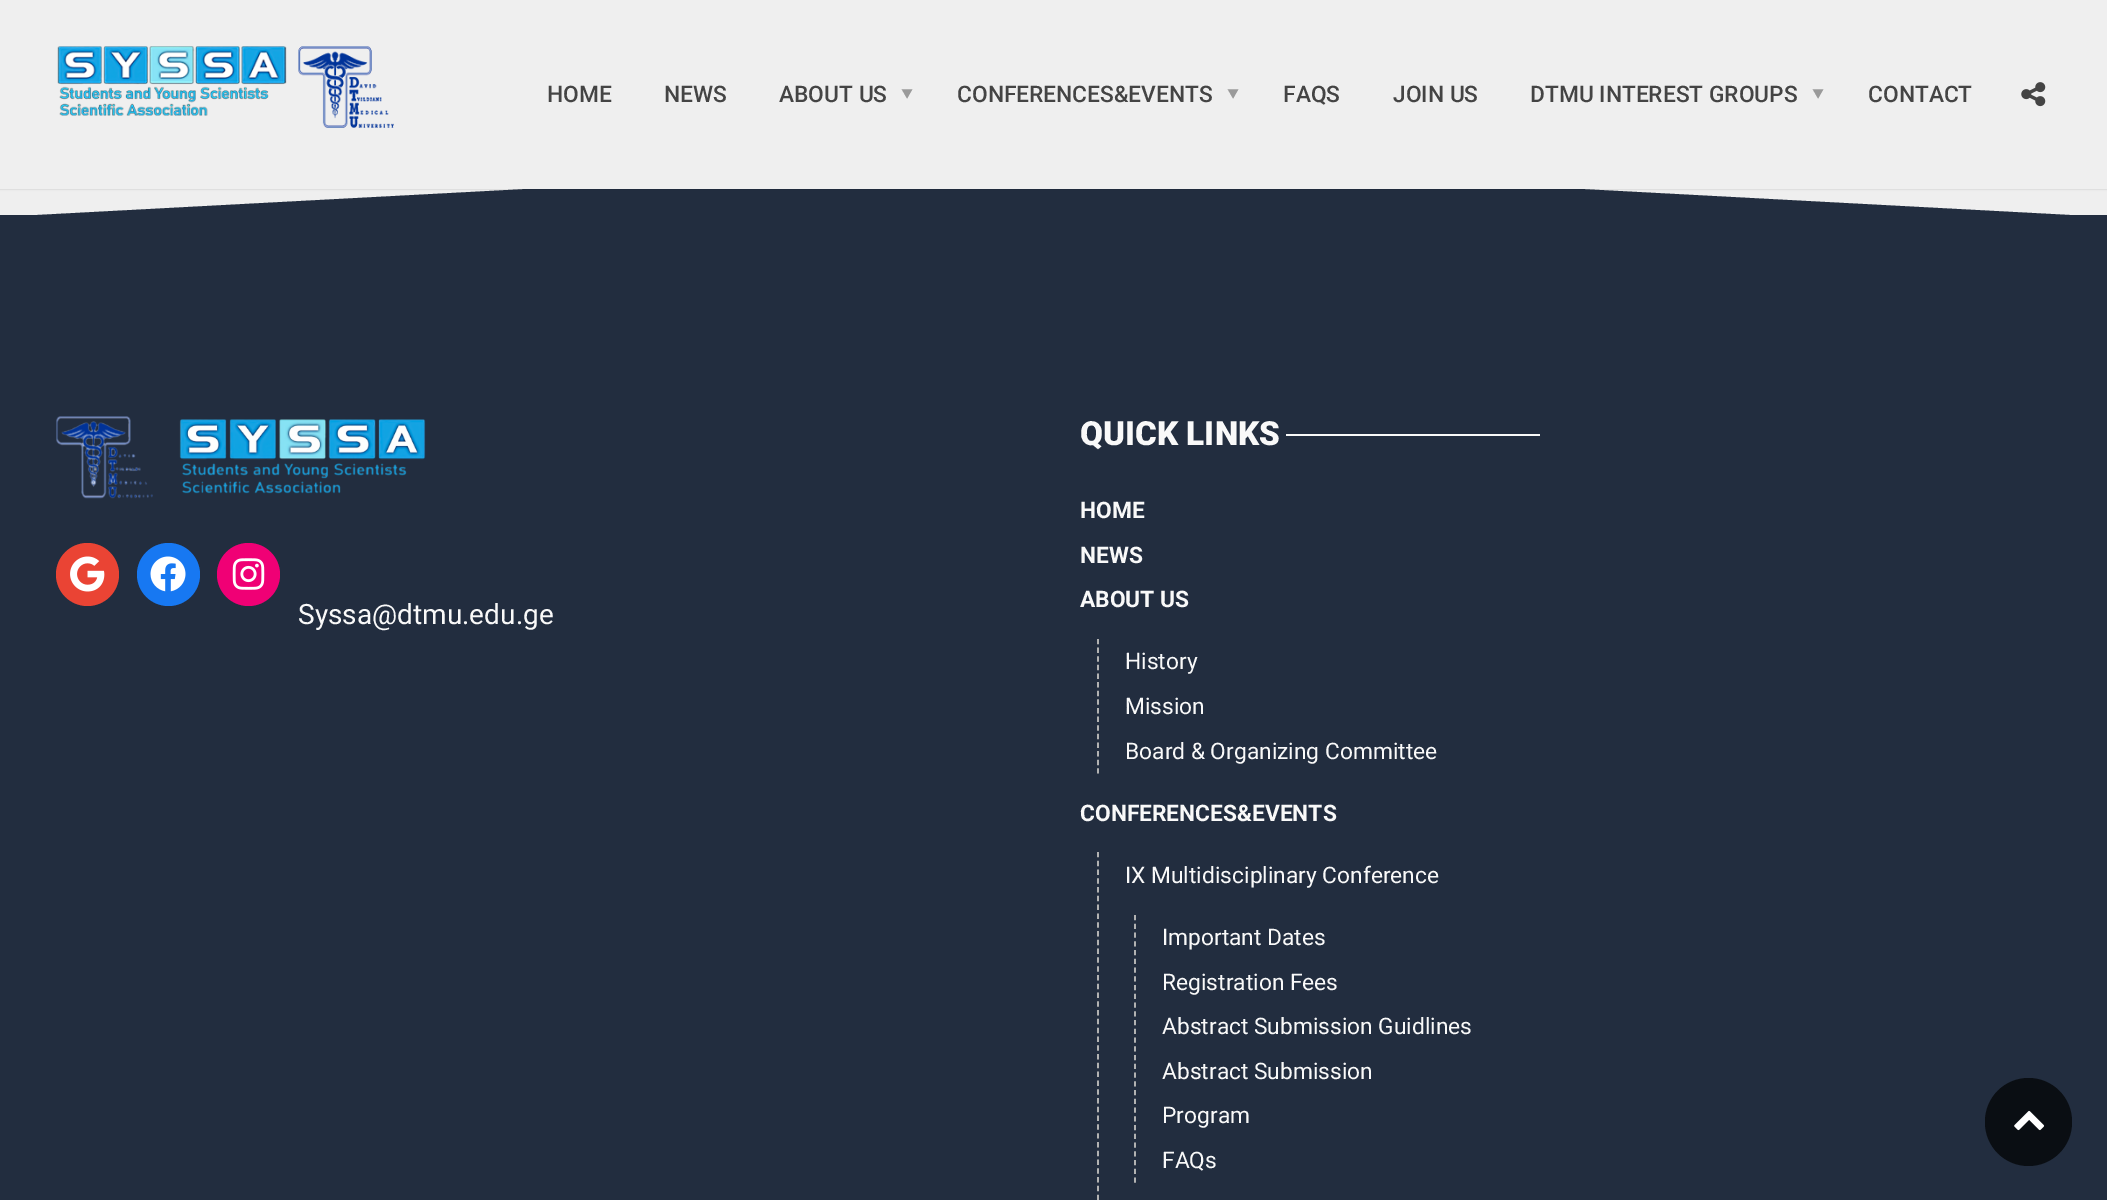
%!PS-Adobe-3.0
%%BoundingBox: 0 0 2107 1200
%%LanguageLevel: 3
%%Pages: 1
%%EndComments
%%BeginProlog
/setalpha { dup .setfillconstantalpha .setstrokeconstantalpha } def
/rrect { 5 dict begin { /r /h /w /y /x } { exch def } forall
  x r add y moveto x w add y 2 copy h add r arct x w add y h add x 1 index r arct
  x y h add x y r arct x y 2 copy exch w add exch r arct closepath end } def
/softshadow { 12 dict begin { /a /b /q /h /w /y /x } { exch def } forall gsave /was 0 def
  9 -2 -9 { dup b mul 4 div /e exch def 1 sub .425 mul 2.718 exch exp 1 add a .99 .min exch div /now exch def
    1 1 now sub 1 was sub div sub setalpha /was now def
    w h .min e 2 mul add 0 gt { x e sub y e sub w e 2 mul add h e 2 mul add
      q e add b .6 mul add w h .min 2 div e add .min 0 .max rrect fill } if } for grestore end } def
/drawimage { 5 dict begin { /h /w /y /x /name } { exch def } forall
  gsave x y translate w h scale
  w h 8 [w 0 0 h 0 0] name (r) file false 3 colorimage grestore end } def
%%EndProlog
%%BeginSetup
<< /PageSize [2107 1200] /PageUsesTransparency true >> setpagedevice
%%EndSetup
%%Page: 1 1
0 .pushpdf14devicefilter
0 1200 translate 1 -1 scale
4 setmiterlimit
0.937 setgray
0 0 2107 1200 rectfill
0.133 0.176 0.247 setrgbcolor
0 215 2107 985 rectfill
newpath 1054 217 moveto 1054 161 lineto 0 217 lineto closepath fill
newpath 1054 217 moveto 1054 161 lineto 2107 217 lineto closepath fill
0 setgray
0 0 2107 189 0 1 0.2 softshadow
0.937 setgray
0 0 2107 189 rectfill
(images/1.raw) 57 46 337 82 drawimage
(images/2.raw) 2021 82 25 25 drawimage
(images/3.raw) 56 416 370 83 drawimage
0.918 0.267 0.204 setrgbcolor
newpath 87.5 574.5 31.5 0 360 arc closepath fill
(images/4.raw) 70 556 35 36 drawimage
0.09 0.471 0.949 setrgbcolor
newpath 168.5 574.5 31.5 0 360 arc closepath fill
(images/5.raw) 150 556 36 36 drawimage
0.941 0 0.459 setrgbcolor
newpath 248.5 574.5 31.5 0 360 arc closepath fill
(images/6.raw) 232 558 33 32 drawimage
0.976 setgray
1286 434 254 2 rectfill
0.698 setgray
1.8 setlinewidth
[5.25 3.38] 0 setdash
newpath 1098 639 moveto 1098 773.5 lineto stroke
[5.25 3.54] 0 setdash
newpath 1098 852 moveto 1098 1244 lineto stroke
[5.25 3.5] 0 setdash
newpath 1135 915 moveto 1135 1183 lineto stroke
0.039 0.055 0.075 setrgbcolor
1985 1078 87 88 43.5 rrect fill
(images/7.raw) 2014 1110 31 21 drawimage
/Roboto-Medium [22.75 0 0 -22.75 0 0] selectfont
0.267 setgray
547 102 moveto (HOME) show
664 102 moveto (NEWS) show
779 102 moveto (ABOUT US) show
/NotoSans-Medium [35 0 0 -35 0 0] selectfont
0.604 setgray
gsave 894 87 translate 90 rotate 0 0 moveto (‣) show grestore
/Roboto-Medium [22.75 0 0 -22.75 0 0] selectfont
0.267 setgray
957 102 moveto (CONFERENCES&EVENTS) show
/NotoSans-Medium [35 0 0 -35 0 0] selectfont
0.604 setgray
gsave 1220 87 translate 90 rotate 0 0 moveto (‣) show grestore
/Roboto-Medium [22.75 0 0 -22.75 0 0] selectfont
0.267 setgray
1283 102 moveto (FAQS) show
1393 102 moveto (JOIN US) show
1530 102 moveto (DTMU INTEREST GROUPS) show
/NotoSans-Medium [35 0 0 -35 0 0] selectfont
0.604 setgray
gsave 1805 87 translate 90 rotate 0 0 moveto (‣) show grestore
/Roboto-Medium [22.75 0 0 -22.75 0 0] selectfont
0.267 setgray
1868 102 moveto (CONTACT) show
/Roboto-Regular [28 0 0 -28 0 0] selectfont
0.976 setgray
298 624 moveto (Syssa@dtmu.edu.ge) show
/Roboto-Black [33.25 0 0 -33.25 0 0] selectfont
1080 445 moveto (QUICK LINKS) show
/Roboto-Bold [22.75 0 0 -22.75 0 0] selectfont
1080 518 moveto (HOME) show
1080 563 moveto (NEWS) show
1080 607 moveto (ABOUT US) show
/Roboto-Regular [22.75 0 0 -22.75 0 0] selectfont
1125 669 moveto (History) show
1125 714 moveto (Mission) show
1125 759 moveto (Board & Organizing Committee) show
/Roboto-Bold [22.75 0 0 -22.75 0 0] selectfont
1080 821 moveto (CONFERENCES&EVENTS) show
/Roboto-Regular [22.75 0 0 -22.75 0 0] selectfont
1125 883 moveto (IX Multidisciplinary Conference) show
1162 945 moveto (Important Dates) show
1162 990 moveto (Registration Fees) show
1162 1034 moveto (Abstract Submission Guidlines) show
1162 1079 moveto (Abstract Submission) show
1162 1123 moveto (Program) show
1162 1168 moveto (FAQs) show
.poppdf14devicefilter showpage
%%EOF
